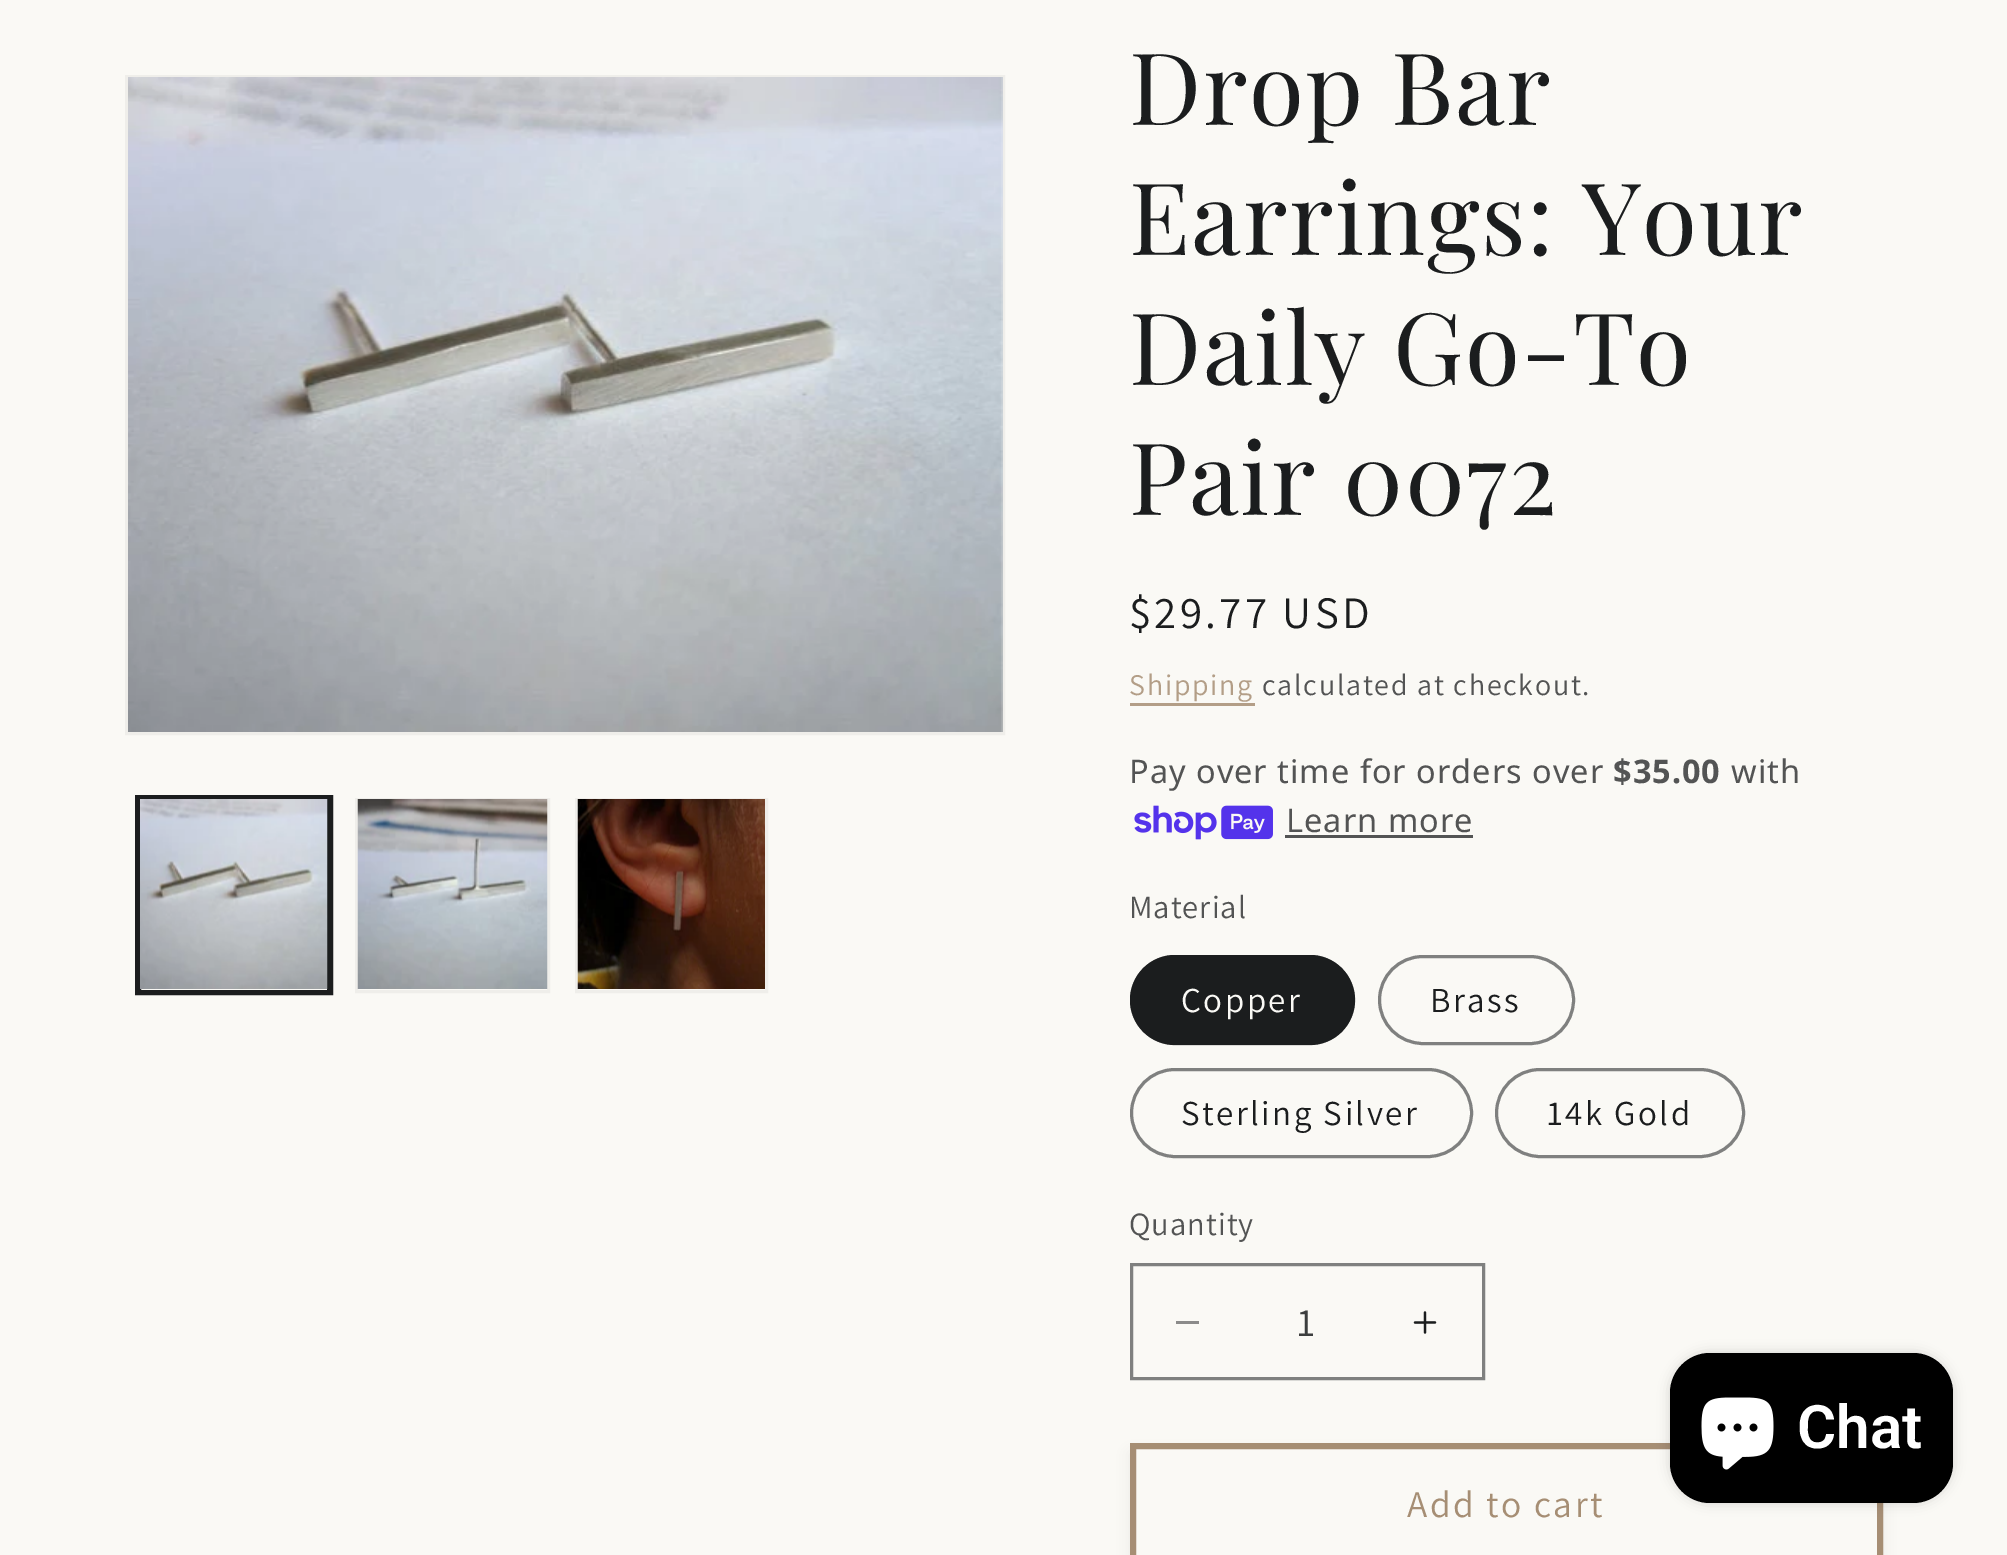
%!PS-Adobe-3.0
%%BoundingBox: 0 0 2007 1555
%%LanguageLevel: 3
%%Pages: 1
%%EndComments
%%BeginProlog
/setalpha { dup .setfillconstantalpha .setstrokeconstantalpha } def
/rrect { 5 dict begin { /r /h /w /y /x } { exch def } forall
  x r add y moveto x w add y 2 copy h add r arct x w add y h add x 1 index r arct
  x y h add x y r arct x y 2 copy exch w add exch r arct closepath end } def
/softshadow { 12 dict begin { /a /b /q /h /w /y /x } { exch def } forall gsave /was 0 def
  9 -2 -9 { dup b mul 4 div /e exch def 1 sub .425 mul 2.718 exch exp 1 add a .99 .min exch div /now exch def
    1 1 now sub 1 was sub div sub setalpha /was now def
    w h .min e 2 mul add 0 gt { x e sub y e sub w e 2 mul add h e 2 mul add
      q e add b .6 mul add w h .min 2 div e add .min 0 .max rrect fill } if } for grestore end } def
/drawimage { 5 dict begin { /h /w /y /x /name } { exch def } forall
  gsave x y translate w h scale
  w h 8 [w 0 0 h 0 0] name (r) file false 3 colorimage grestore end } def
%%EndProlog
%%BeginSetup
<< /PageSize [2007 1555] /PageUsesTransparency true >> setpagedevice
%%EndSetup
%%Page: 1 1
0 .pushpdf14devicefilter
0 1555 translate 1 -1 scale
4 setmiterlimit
0.98 0.976 0.961 setrgbcolor
0 0 2007 1555 rectfill
0.937 0.933 0.918 setrgbcolor
3 setlinewidth
126.5 76.5 877 657 rectstroke
(images/1.raw) 128 77 875 655 drawimage
0.106 0.114 0.118 setrgbcolor
136.5 796.5 195 197 rectstroke
139.5 799.5 189 192 rectstroke
(images/2.raw) 140 799 188 190 drawimage
0.937 0.933 0.918 setrgbcolor
356.5 799.5 192 192 rectstroke
(images/3.raw) 357 799 191 190 drawimage
576.5 799.5 190 192 rectstroke
(images/4.raw) 577 799 188 190 drawimage
0.702 0.62 0.529 setrgbcolor
1130 703 125 3 rectfill
(images/5.raw) 1134 805 139 35 drawimage
0.325 0.329 0.329 setrgbcolor
1285 835 188 3 rectfill
0.106 0.114 0.118 setrgbcolor
1130 955 225 90 45 rrect fill
0.55 setalpha
1131.5 956.5 222 87 43.5 rrect stroke
1 setalpha
0.498 0.502 0.498 setrgbcolor
1379.5 956.5 194 87 43.5 rrect stroke
1131.5 1069.5 340 87 43.5 rrect stroke
1496.5 1069.5 247 87 43.5 rrect stroke
0.545 0.545 0.541 setrgbcolor
1176 1321 23 3 rectfill
(images/6.raw) 1413 1311 24 23 drawimage
0.498 0.502 0.498 setrgbcolor
1131.5 1264.5 352 114 rectstroke
0.451 0.447 0.427 setrgbcolor
1130 1453 753 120 0 6 0.1 softshadow
0.98 0.976 0.961 setrgbcolor
1136 1449 741 106 rectfill
0.651 0.557 0.455 setrgbcolor
6 setlinewidth
1133 1446 747 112 rectstroke
0 setgray
1670 1353 283 150 40 6 0.15 softshadow
1670 1353 283 150 40 rrect fill
(images/7.raw) 1701 1397 73 73 drawimage
/PlayfairDisplay-Regular [100 0 0 -100 0 0] selectfont
0.106 0.114 0.118 setrgbcolor
1129 125 moveto 1.5 0 (Drop Bar) ashow
1129 255 moveto 1.5 0 (Earrings: Your) ashow
1129 385 moveto 1.5 0 (Daily Go-To) ashow
1129 515 moveto 1.5 0 (Pair 0072) ashow
/Assistant-Regular [45 0 0 -45 0 0] selectfont
1129 628 moveto 3.25 0 ($29.77 USD) ashow
/Assistant-Regular [30 0 0 -30 0 0] selectfont
0.702 0.62 0.529 setrgbcolor
1129 695 moveto 1.75 0 (Shipping) ashow
0.325 0.329 0.329 setrgbcolor
1262 695 moveto 1.75 0 (calculated at checkout.) ashow
/NotoSans-Regular [32.5 0 0 -32.5 0 0] selectfont
1129 783 moveto 1 0 (Pay over time for orders over) ashow
/NotoSans-Bold [32.5 0 0 -32.5 0 0] selectfont
1613 783 moveto 1 0 ($35.00) ashow
/NotoSans-Regular [32.5 0 0 -32.5 0 0] selectfont
1731 783 moveto 1 0 (with) ashow
1286 832 moveto 1 0 (Learn more) ashow
/Assistant-Regular [32.5 0 0 -32.5 0 0] selectfont
1129 918 moveto 1 0 (Material) ashow
/Assistant-Regular [35 0 0 -35 0 0] selectfont
0.98 0.976 0.961 setrgbcolor
1181 1012 moveto 2.5 0 (Copper) ashow
0.106 0.114 0.118 setrgbcolor
1430 1012 moveto 2.5 0 (Brass) ashow
1181 1125 moveto 2.5 0 (Sterling Silver) ashow
1547 1125 moveto 2.5 0 (14k Gold) ashow
/Assistant-Regular [32.5 0 0 -32.5 0 0] selectfont
0.325 0.329 0.329 setrgbcolor
1129 1235 moveto 1 0 (Quantity) ashow
/Assistant-Regular [40 0 0 -40 0 0] selectfont
0.235 0.243 0.243 setrgbcolor
1297 1336 moveto (1) show
/Assistant-Regular [37.5 0 0 -37.5 0 0] selectfont
0.651 0.557 0.455 setrgbcolor
1407 1517 moveto 2.5 0 (Add to cart) ashow
/Roboto-SemiBold [60 0 0 -60 0 0] selectfont
1 setgray
1797 1448 moveto (Chat) show
.poppdf14devicefilter showpage
%%EOF
